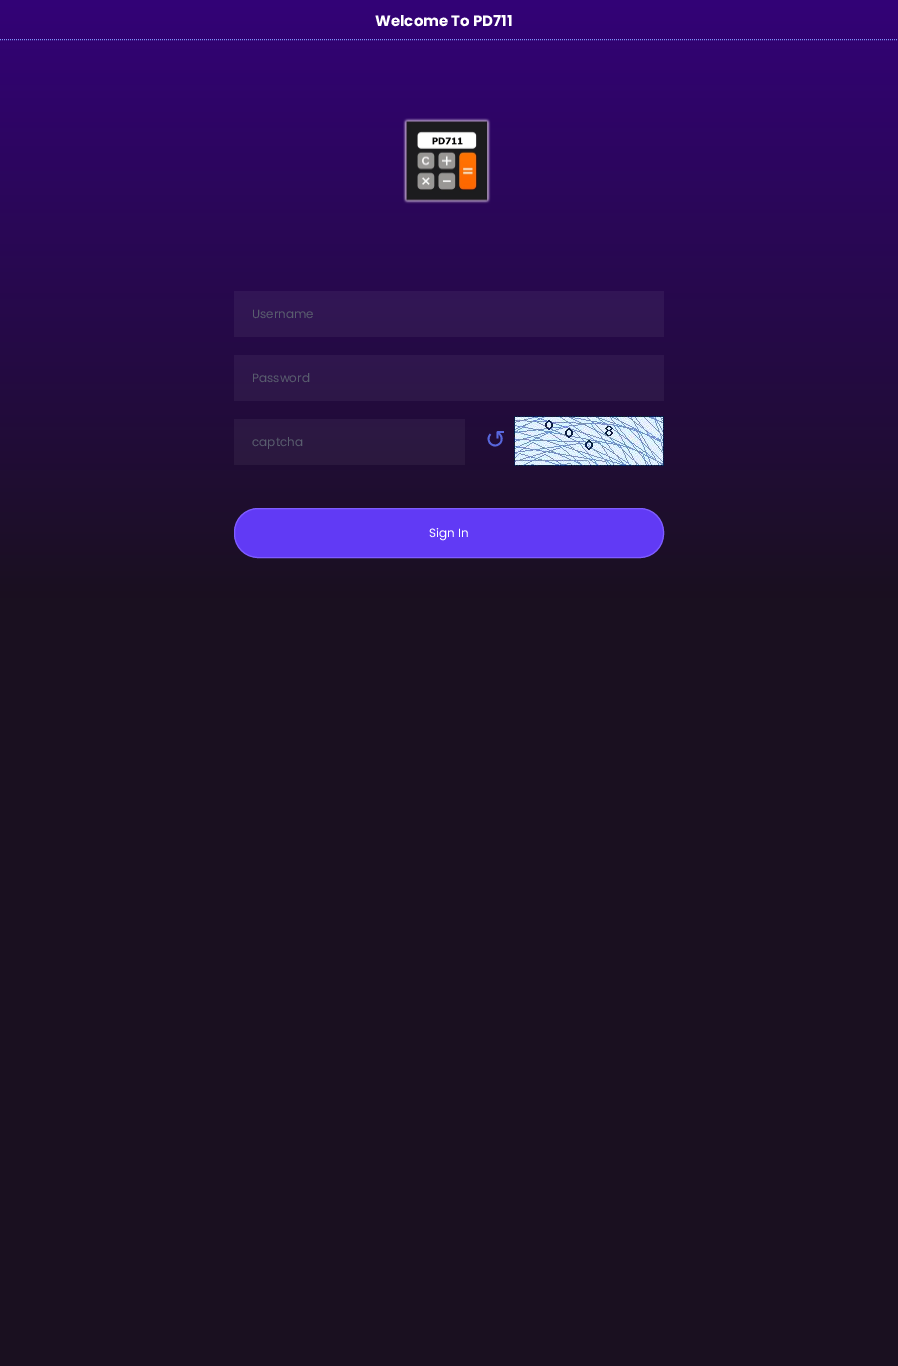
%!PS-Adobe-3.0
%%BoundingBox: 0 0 898 1366
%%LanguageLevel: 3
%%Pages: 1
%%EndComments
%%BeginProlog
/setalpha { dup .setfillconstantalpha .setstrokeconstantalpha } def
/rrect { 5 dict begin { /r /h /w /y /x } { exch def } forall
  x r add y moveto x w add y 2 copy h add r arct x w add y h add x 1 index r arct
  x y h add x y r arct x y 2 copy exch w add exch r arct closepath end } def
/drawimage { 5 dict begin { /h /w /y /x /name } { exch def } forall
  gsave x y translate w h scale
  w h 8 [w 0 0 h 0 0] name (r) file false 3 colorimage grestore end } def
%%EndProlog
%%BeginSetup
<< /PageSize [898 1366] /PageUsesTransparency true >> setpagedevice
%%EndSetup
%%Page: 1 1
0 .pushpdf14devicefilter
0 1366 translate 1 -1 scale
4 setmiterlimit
1 setgray
0 0 898 1366 rectfill
gsave newpath 0 0 moveto 898 0 lineto 898 1366 lineto 0 1366 lineto closepath clip newpath
<< /ShadingType 2 /ColorSpace /DeviceRGB /Coords [449 0 449 1366] /Extend [true true] /Function << /FunctionType 3 /Domain [0 1] /Functions [<< /FunctionType 2 /Domain [0 1] /C0 [0.2 0.008 0.467] /C1 [0.102 0.063 0.125] /N 1 >> << /FunctionType 2 /Domain [0 1] /C0 [0.102 0.063 0.125] /C1 [0.102 0.063 0.125] /N 1 >>] /Bounds [0.44] /Encode [0 1 0 1] >> >> shfill grestore
0.502 0.576 0.976 setrgbcolor
[1 1] 0 setdash
newpath 0 39.5 moveto 898 39.5 lineto stroke
(images/1.raw) 403 118 88 86 drawimage
0.05 setalpha
1 setgray
234 291 430 46 rectfill
234 355 430 46 rectfill
234 419 231 46 rectfill
1 setalpha
(images/2.raw) 514 416 150 50 drawimage
0.38 0.227 0.961 setrgbcolor
234.5 508.5 429 49 23.5 rrect gsave fill grestore
0.498 0.365 1 setrgbcolor
[] 0 setdash
stroke
/Poppins-Bold [15 0 0 -15 0 0] selectfont
1 setgray
375 26 moveto (Welcome To PD711) show
/Poppins-Regular [12 0 0 -12 0 0] selectfont
0.349 0.365 0.431 setrgbcolor
252 318 moveto (Username) show
252 382 moveto (Password) show
252 446 moveto (captcha) show
/DejaVuSans-Regular [25 0 0 -25 0 0] selectfont
0.345 0.404 0.867 setrgbcolor
485 448 moveto (↺) show
/Poppins-Regular [12 0 0 -12 0 0] selectfont
1 setgray
429 537 moveto (Sign In) show
.poppdf14devicefilter showpage
%%EOF
